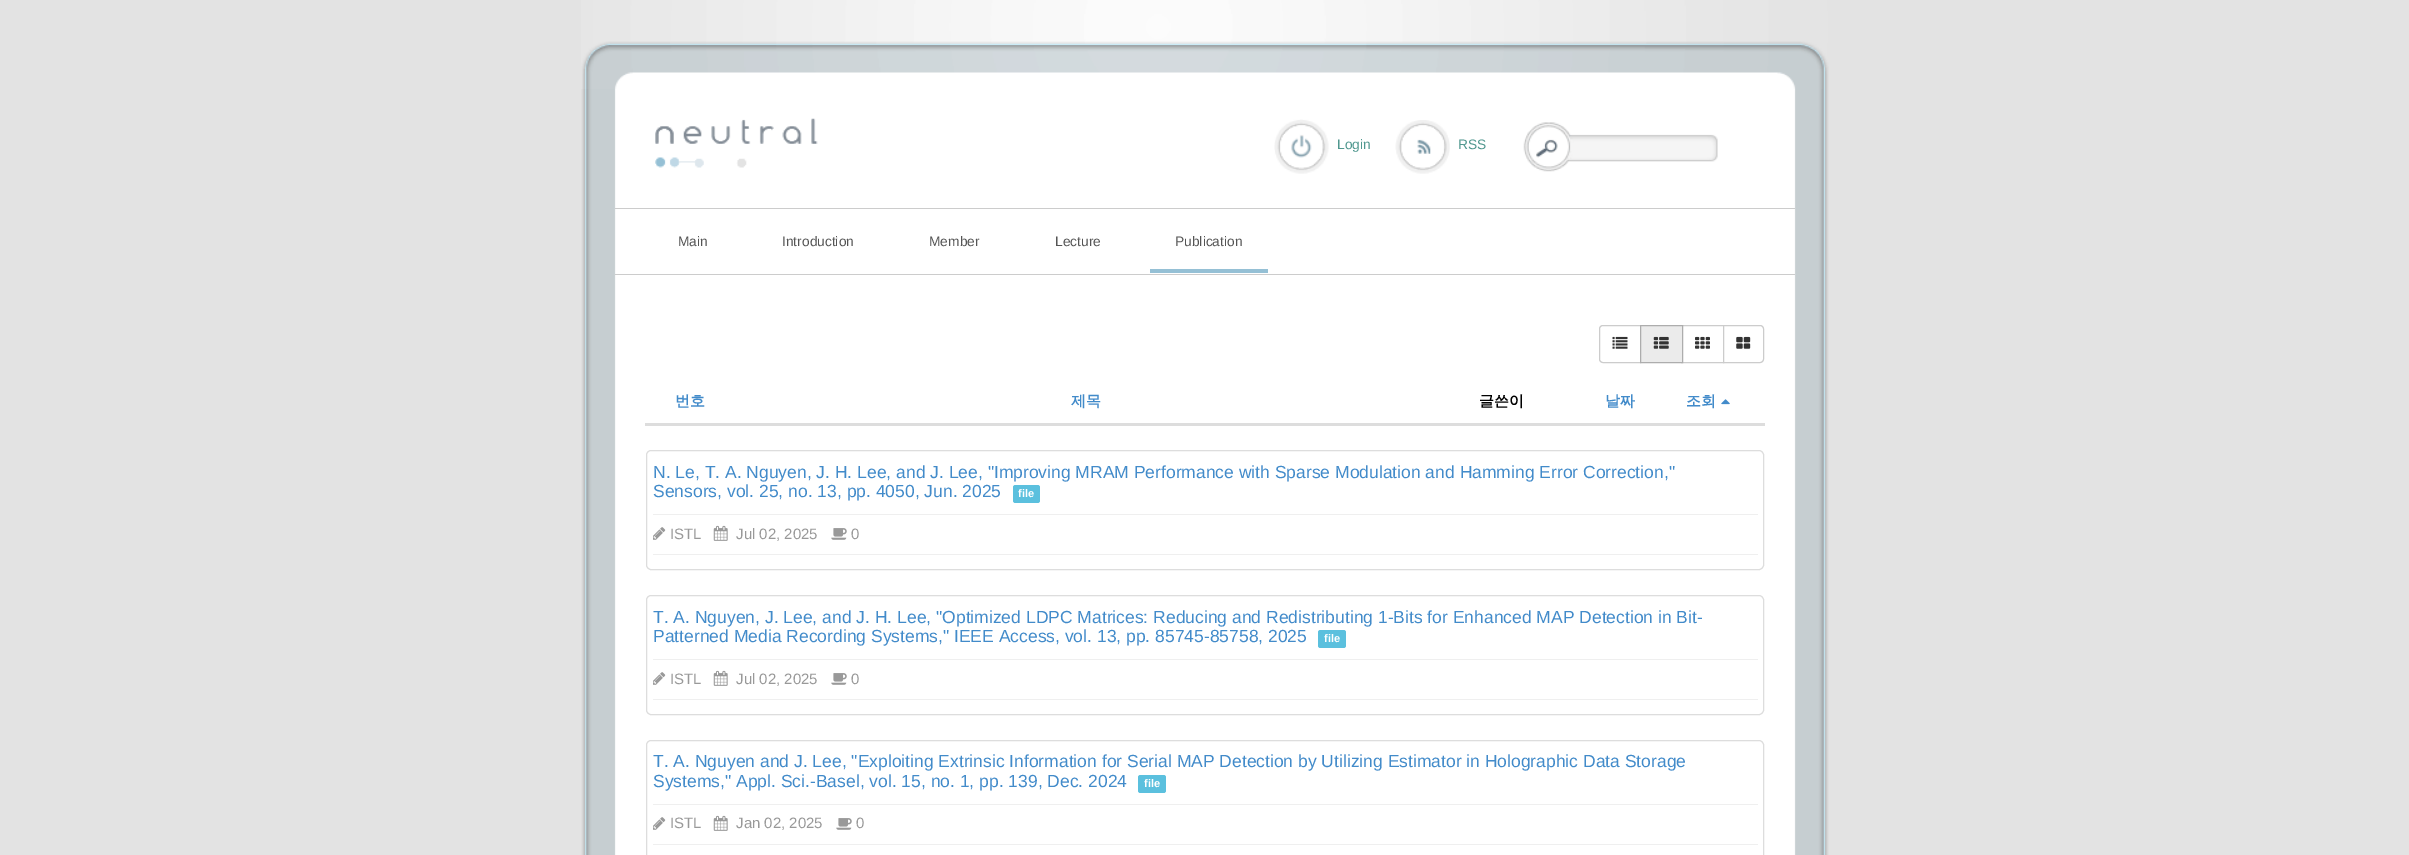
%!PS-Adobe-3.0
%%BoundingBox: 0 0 2409 855
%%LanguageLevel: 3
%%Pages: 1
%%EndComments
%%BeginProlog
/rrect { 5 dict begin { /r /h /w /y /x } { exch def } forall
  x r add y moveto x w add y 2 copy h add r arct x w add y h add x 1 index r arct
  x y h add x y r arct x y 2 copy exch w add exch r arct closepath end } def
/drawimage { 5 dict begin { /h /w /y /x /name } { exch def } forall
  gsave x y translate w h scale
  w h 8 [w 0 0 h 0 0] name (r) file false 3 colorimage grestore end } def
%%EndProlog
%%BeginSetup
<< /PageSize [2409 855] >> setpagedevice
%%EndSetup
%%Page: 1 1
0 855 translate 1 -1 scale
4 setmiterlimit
0.89 setgray
0 0 2409 855 rectfill
(images/1.raw) 581 89 1248 766 drawimage
(images/2.raw) 581 0 1248 89 drawimage
(images/3.raw) 655 118 163 50 drawimage
(images/4.raw) 1274 119 55 55 drawimage
(images/5.raw) 1395 120 55 54 drawimage
(images/6.raw) 1523 122 195 50 drawimage
0.8 setgray
615 208 1180 1 rectfill
615 274 1180 1 rectfill
0.584 0.753 0.835 setrgbcolor
1150 269 118 4 rectfill
0.8 setgray
newpath 1603 325.5 moveto 1640.5 325.5 lineto 1640.5 362.5 lineto 1603 362.5 lineto 1601 362.5 1599.5 361 1599.5 359 curveto 1599.5 329 lineto 1599.5 327 1601 325.5 1603 325.5 curveto closepath stroke
(images/7.raw) 1612 336 16 13 drawimage
1681.5 325.5 42 37 rectstroke
0.922 setgray
newpath 1640.5 325.5 moveto 1682.5 325.5 lineto 1682.5 362.5 lineto 1640.5 362.5 lineto closepath gsave fill grestore
0.678 setgray
stroke
(images/8.raw) 1653 336 16 13 drawimage
(images/9.raw) 1695 336 15 13 drawimage
1 setgray
newpath 1723.5 325.5 moveto 1760 325.5 lineto 1762 325.5 1763.5 327 1763.5 329 curveto 1763.5 359 lineto 1763.5 361 1762 362.5 1760 362.5 curveto 1723.5 362.5 lineto closepath gsave fill grestore
0.8 setgray
stroke
(images/10.raw) 1736 336 15 13 drawimage
0.867 setgray
645 423 1120 3 rectfill
(images/11.raw) 1721 399 9 6 drawimage
646.5 450.5 1117 119 4.5 rrect stroke
0.357 0.753 0.871 setrgbcolor
1013 485 27 18 2.5 rrect fill
0.937 setgray
653 514 1105 1 rectfill
653 554 1105 1 rectfill
(images/12.raw) 653 527 13 13 drawimage
(images/13.raw) 713 525 15 16 drawimage
(images/14.raw) 831 528 16 12 drawimage
0.867 setgray
646.5 595.5 1117 119 4.5 rrect stroke
0.357 0.753 0.871 setrgbcolor
1318 630 28 18 2.5 rrect fill
0.937 setgray
653 659 1105 1 rectfill
653 699 1105 1 rectfill
(images/12.raw) 653 672 13 13 drawimage
(images/13.raw) 713 670 15 16 drawimage
(images/14.raw) 831 673 16 12 drawimage
0.867 setgray
646.5 740.5 1117 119 4.5 rrect stroke
0.357 0.753 0.871 setrgbcolor
1138 775 28 18 2.5 rrect fill
0.937 setgray
653 804 1105 1 rectfill
653 844 1105 1 rectfill
(images/12.raw) 653 817 13 13 drawimage
(images/13.raw) 713 815 15 16 drawimage
(images/14.raw) 836 818 16 12 drawimage
/LiberationSans-Regular [13.75 0 0 -13.75 0 0] selectfont
0.314 0.596 0.561 setrgbcolor
1337 149 moveto (Login) show
1458 149 moveto (RSS) show
0.333 setgray
678 246 moveto (Main) show
782 246 moveto (Introduction) show
929 246 moveto (Member) show
1055 246 moveto (Lecture) show
1175 246 moveto (Publication) show
/WenQuanYiZenHei-Bold [15 0 0 -15 0 0] selectfont
0.259 0.545 0.792 setrgbcolor
675 406 moveto (번호) show
1071 406 moveto (제목) show
0 setgray
1479 406 moveto (글쓴이) show
0.259 0.545 0.792 setrgbcolor
1605 406 moveto (날짜) show
1686 406 moveto (조회) show
/LiberationSans-Regular [17.5 0 0 -17.5 0 0] selectfont
653 478 moveto (N. Le, T. A. Nguyen, J. H. Lee, and J. Lee, "Improving MRAM Performance with Sparse Modulation and Hamming Error Correction,") show
653 497 moveto (Sensors, vol. 25, no. 13, pp. 4050, Jun. 2025) show
/LiberationSans-Bold [11 0 0 -11 0 0] selectfont
1 setgray
1018 497 moveto (file) show
/LiberationSans-Regular [15 0 0 -15 0 0] selectfont
0.6 setgray
670 539 moveto (ISTL) show
736 539 moveto (Jul 02, 2025) show
851 539 moveto (0) show
/LiberationSans-Regular [17.5 0 0 -17.5 0 0] selectfont
0.259 0.545 0.792 setrgbcolor
653 623 moveto (T. A. Nguyen, J. Lee, and J. H. Lee, "Optimized LDPC Matrices: Reducing and Redistributing 1-Bits for Enhanced MAP Detection in Bit-) show
653 642 moveto (Patterned Media Recording Systems," IEEE Access, vol. 13, pp. 85745-85758, 2025) show
/LiberationSans-Bold [11 0 0 -11 0 0] selectfont
1 setgray
1324 642 moveto (file) show
/LiberationSans-Regular [15 0 0 -15 0 0] selectfont
0.6 setgray
670 684 moveto (ISTL) show
736 684 moveto (Jul 02, 2025) show
851 684 moveto (0) show
/LiberationSans-Regular [17.5 0 0 -17.5 0 0] selectfont
0.259 0.545 0.792 setrgbcolor
653 767 moveto (T. A. Nguyen and J. Lee, "Exploiting Extrinsic Information for Serial MAP Detection by Utilizing Estimator in Holographic Data Storage) show
653 787 moveto (Systems," Appl. Sci.-Basel, vol. 15, no. 1, pp. 139, Dec. 2024) show
/LiberationSans-Bold [11 0 0 -11 0 0] selectfont
1 setgray
1144 787 moveto (file) show
/LiberationSans-Regular [15 0 0 -15 0 0] selectfont
0.6 setgray
670 828 moveto (ISTL) show
736 828 moveto (Jan 02, 2025) show
856 828 moveto (0) show
showpage
%%EOF
